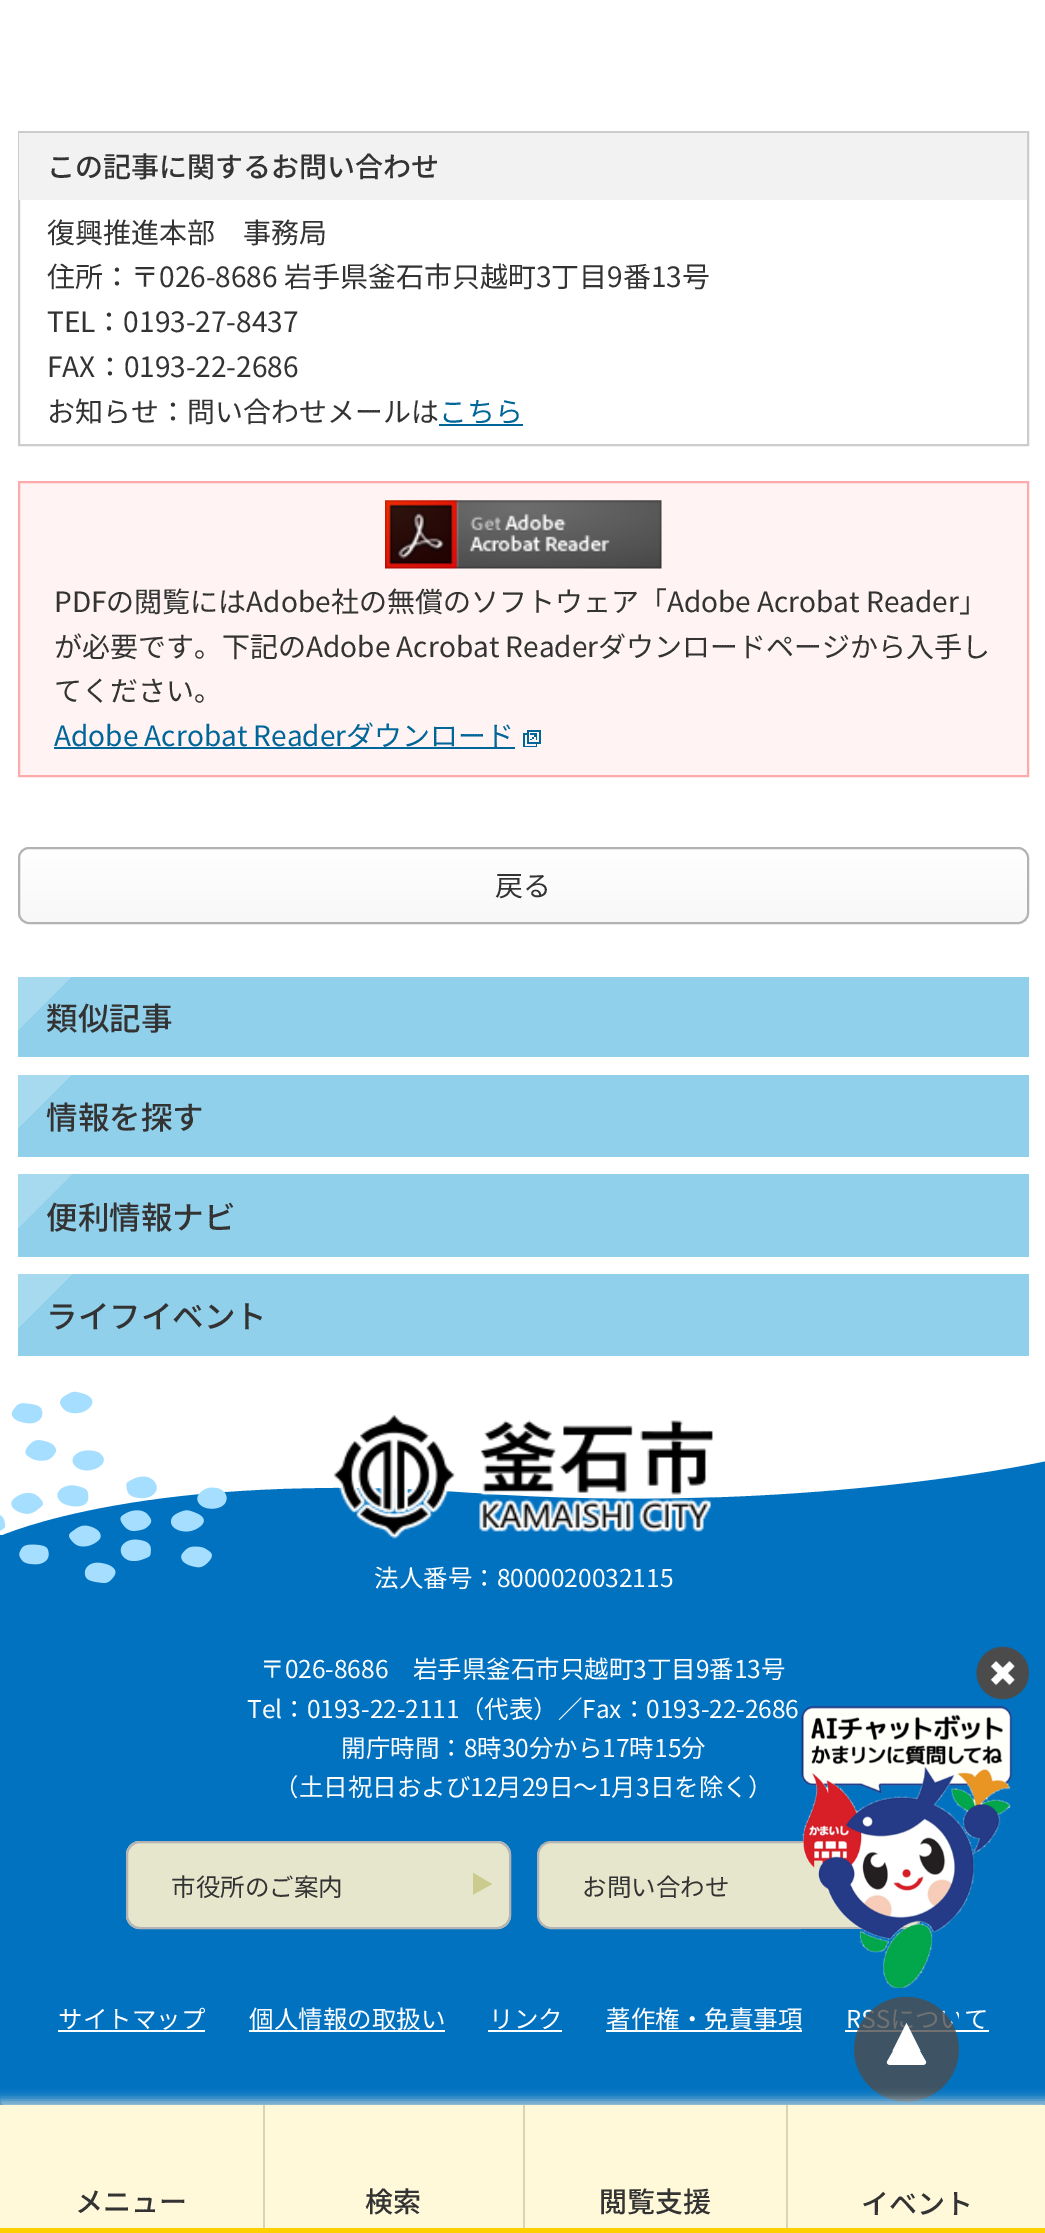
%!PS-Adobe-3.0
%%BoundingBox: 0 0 1045 2233
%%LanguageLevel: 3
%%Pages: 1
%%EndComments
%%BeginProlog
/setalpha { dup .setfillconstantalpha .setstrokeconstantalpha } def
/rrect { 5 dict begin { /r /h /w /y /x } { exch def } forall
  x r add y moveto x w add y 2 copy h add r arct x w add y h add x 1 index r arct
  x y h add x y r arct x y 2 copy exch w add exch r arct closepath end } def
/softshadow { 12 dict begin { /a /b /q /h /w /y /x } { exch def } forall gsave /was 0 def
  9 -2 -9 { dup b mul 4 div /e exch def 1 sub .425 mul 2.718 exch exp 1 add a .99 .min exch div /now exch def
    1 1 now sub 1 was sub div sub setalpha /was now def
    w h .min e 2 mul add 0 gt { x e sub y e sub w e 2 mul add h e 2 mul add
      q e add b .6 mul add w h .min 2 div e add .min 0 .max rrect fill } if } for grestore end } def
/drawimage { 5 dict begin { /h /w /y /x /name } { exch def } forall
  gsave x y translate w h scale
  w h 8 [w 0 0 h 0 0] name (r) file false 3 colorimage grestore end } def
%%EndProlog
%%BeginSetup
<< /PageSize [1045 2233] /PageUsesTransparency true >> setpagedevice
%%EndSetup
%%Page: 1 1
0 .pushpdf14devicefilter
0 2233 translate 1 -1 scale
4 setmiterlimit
1 setgray
0 0 1045 2233 rectfill
0.8 setgray
2 setlinewidth
19 132 1009 313 rectstroke
0.949 setgray
19 133 1008 67 rectfill
0 0.4 0.6 setrgbcolor
439 424 84 2 rectfill
1 0.953 0.953 setrgbcolor
20 483 1007 292 rectfill
(images/1.raw) 385 500 277 69 drawimage
1 0.667 0.667 setrgbcolor
19 482 1009 294 rectstroke
0 0.4 0.6 setrgbcolor
54 747 461 2 rectfill
(images/2.raw) 523 730 18 17 drawimage
gsave
18 847 1011 77 11 rrect clip newpath
gsave newpath 18 849 moveto 1029 849 lineto 1029 922 lineto 18 922 lineto closepath clip newpath
<< /ShadingType 2 /ColorSpace /DeviceRGB /Coords [523 849 523 922] /Extend [true true] /Function << /FunctionType 2 /Domain [0 1] /C0 [1 1 1] /C1 [0.973 0.973 0.973] /N 1 >> >> shfill grestore
grestore
0.702 setgray
19 848 1009 75 10 rrect stroke
gsave newpath 18 977 moveto 1029 977 lineto 1029 1057 lineto 18 1057 lineto closepath clip newpath
<< /ShadingType 2 /ColorSpace /DeviceRGB /Coords [250 744 796 1290] /Extend [true true] /Function << /FunctionType 3 /Domain [0 1] /Functions [<< /FunctionType 2 /Domain [0 1] /C0 [0.655 0.851 0.937] /C1 [0.655 0.851 0.937] /N 1 >> << /FunctionType 2 /Domain [0 1] /C0 [0.569 0.816 0.922] /C1 [0.569 0.816 0.922] /N 1 >>] /Bounds [0.05] /Encode [0 1 0 1] >> >> shfill grestore
gsave newpath 18 1075 moveto 1029 1075 lineto 1029 1157 lineto 18 1157 lineto closepath clip newpath
<< /ShadingType 2 /ColorSpace /DeviceRGB /Coords [250 842 797 1389] /Extend [true true] /Function << /FunctionType 3 /Domain [0 1] /Functions [<< /FunctionType 2 /Domain [0 1] /C0 [0.655 0.851 0.937] /C1 [0.655 0.851 0.937] /N 1 >> << /FunctionType 2 /Domain [0 1] /C0 [0.569 0.816 0.922] /C1 [0.569 0.816 0.922] /N 1 >>] /Bounds [0.05] /Encode [0 1 0 1] >> >> shfill grestore
gsave newpath 18 1174 moveto 1029 1174 lineto 1029 1257 lineto 18 1257 lineto closepath clip newpath
<< /ShadingType 2 /ColorSpace /DeviceRGB /Coords [250 942 797 1489] /Extend [true true] /Function << /FunctionType 3 /Domain [0 1] /Functions [<< /FunctionType 2 /Domain [0 1] /C0 [0.655 0.851 0.937] /C1 [0.655 0.851 0.937] /N 1 >> << /FunctionType 2 /Domain [0 1] /C0 [0.569 0.816 0.922] /C1 [0.569 0.816 0.922] /N 1 >>] /Bounds [0.05] /Encode [0 1 0 1] >> >> shfill grestore
gsave newpath 18 1274 moveto 1029 1274 lineto 1029 1356 lineto 18 1356 lineto closepath clip newpath
<< /ShadingType 2 /ColorSpace /DeviceRGB /Coords [250 1042 797 1589] /Extend [true true] /Function << /FunctionType 3 /Domain [0 1] /Functions [<< /FunctionType 2 /Domain [0 1] /C0 [0.655 0.851 0.937] /C1 [0.655 0.851 0.937] /N 1 >> << /FunctionType 2 /Domain [0 1] /C0 [0.569 0.816 0.922] /C1 [0.569 0.816 0.922] /N 1 >>] /Bounds [0.05] /Encode [0 1 0 1] >> >> shfill grestore
0.004 0.447 0.753 setrgbcolor
0 1461 1045 644 rectfill
1 setgray
newpath 0 1461 moveto 0 1536 lineto 0 1536 148 1469 474 1493 curveto 799 1516 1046 1461 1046 1461 curveto fill
(images/3.raw) 0 1391 227 192 drawimage
(images/4.raw) 333 1415 380 124 drawimage
0.902 0.902 0.804 setrgbcolor
126 1841 385 88 14 rrect fill
gsave
473 1873 19 22 rectclip
0.796 0.796 0.561 setrgbcolor
newpath 492 1884 moveto 472.5 1895 lineto 472.5 1872.5 lineto closepath fill
grestore
0.702 setgray
127 1842 383 86 13 rrect stroke
0.902 0.902 0.804 setrgbcolor
538 1842 383 86 13 rrect gsave fill grestore
0.702 setgray
stroke
1 setgray
58 2030 147 2 rectfill
249 2030 196 2 rectfill
488 2030 74 2 rectfill
606 2030 196 2 rectfill
845 2030 144 2 rectfill
(images/5.raw) 976 1646 53 54 drawimage
(images/6.raw) 801 1706 211 282 drawimage
/NotoSansJP-Medium [28 0 0 -28 0 0] selectfont
0.2 setgray
47 177 moveto (この記事に関するお問い合わせ) show
/NotoSansJP-Regular [28 0 0 -28 0 0] selectfont
47 243 moveto (復興推進本部　事務局) show
47 287 moveto (住所：〒026-8686 岩手県釜石市只越町3丁目9番13号) show
47 332 moveto (TEL：0193-27-8437) show
47 377 moveto (FAX：0193-22-2686) show
47 422 moveto (お知らせ：問い合わせメールは) show
0 0.4 0.6 setrgbcolor
439 422 moveto (こちら) show
0.2 setgray
54 612 moveto (PDFの閲覧にはAdobe社の無償のソフトウェア「Adobe Acrobat Reader」) show
54 657 moveto (が必要です。下記のAdobe Acrobat Readerダウンロードページから入手し) show
54 701 moveto (てください。) show
0 0.4 0.6 setrgbcolor
54 746 moveto (Adobe Acrobat Readerダウンロード) show
0.2 setgray
495 896 moveto (戻る) show
/NotoSansJP-Medium [31.5 0 0 -31.5 0 0] selectfont
46 1030 moveto (類似記事) show
46 1129 moveto (情報を探す) show
46 1229 moveto (便利情報ナビ) show
46 1328 moveto (ライフイベント) show
/NotoSansJP-Regular [24.5 0 0 -24.5 0 0] selectfont
1 setgray
374 1587 moveto (法人番号：8000020032115) show
260 1678 moveto (〒026-8686　岩手県釜石市只越町3丁目9番13号) show
247 1718 moveto (Tel：0193-22-2111（代表）／Fax：0193-22-2686) show
341 1757 moveto (開庁時間：8時30分から17時15分) show
274 1796 moveto (（土日祝日および12月29日～1月3日を除く）) show
0.2 setgray
171 1896 moveto (市役所のご案内) show
582 1896 moveto (お問い合わせ) show
1 setgray
58 2028 moveto (サイトマップ) show
249 2028 moveto (個人情報の取扱い) show
489 2028 moveto (リンク) show
606 2028 moveto (著作権・免責事項) show
846 2028 moveto (R) show
964 2028 moveto (て) show
(images/7.raw) 854 1997 105 105 drawimage
0.824 0.863 0.863 setrgbcolor
0 2100 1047 128 0 5 0.8 softshadow
1 0.973 0.851 setrgbcolor
788 2105 257 123 rectfill
/NotoSansJP-Medium [28 0 0 -28 0 0] selectfont
0.2 setgray
861 2214 moveto (イベント) show
0.851 0.827 0.722 setrgbcolor
786 2105 2 123 rectfill
1 0.973 0.851 setrgbcolor
525 2105 261 123 rectfill
0.2 setgray
599 2212 moveto (閲覧支援) show
0.851 0.827 0.722 setrgbcolor
523 2105 2 123 rectfill
1 0.973 0.851 setrgbcolor
265 2105 258 123 rectfill
0.2 setgray
365 2212 moveto (検索) show
0.851 0.827 0.722 setrgbcolor
263 2105 2 123 rectfill
1 0.973 0.851 setrgbcolor
0 2105 263 123 rectfill
0.2 setgray
75 2212 moveto (メニュー) show
1 0.816 0 setrgbcolor
0 2228 1045 5 rectfill
1 setgray
newpath 920.5 2051 moveto 892.5 2051 lineto 906.5 2023 lineto closepath fill
.poppdf14devicefilter showpage
%%EOF
